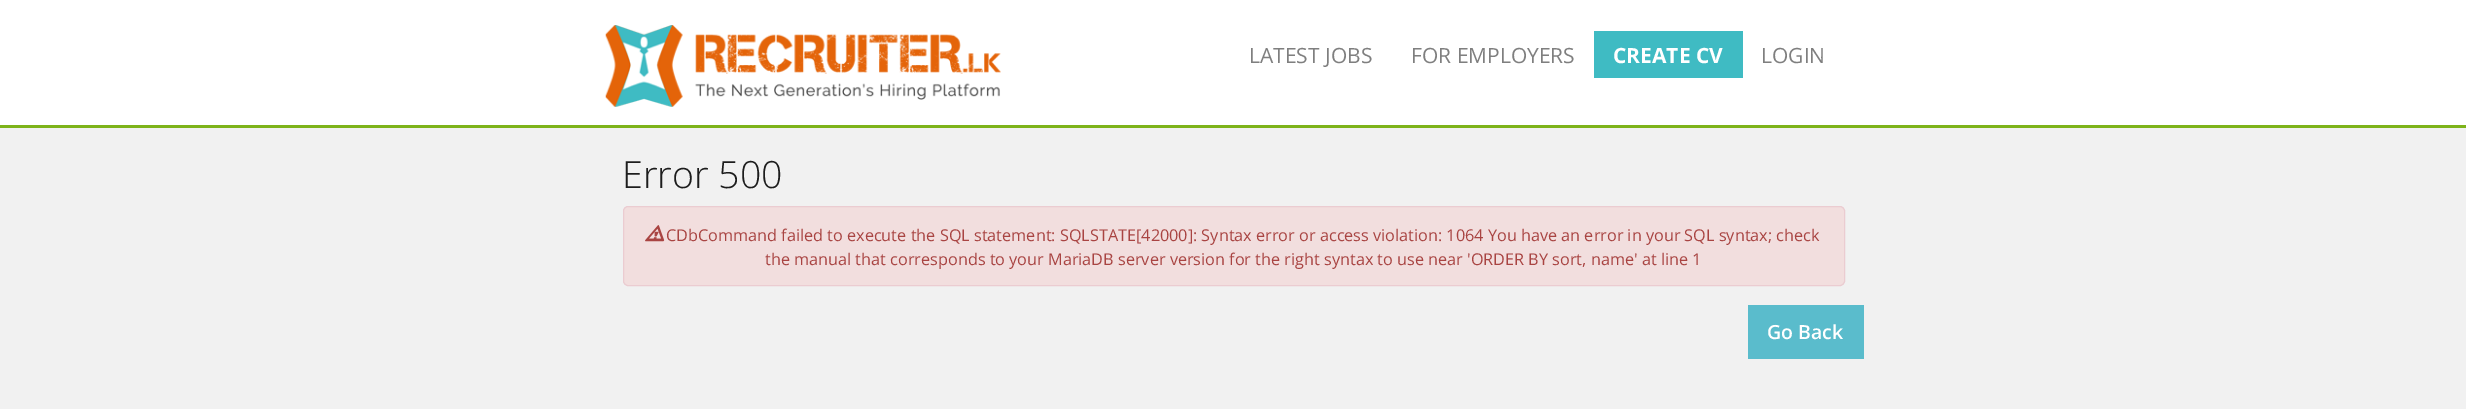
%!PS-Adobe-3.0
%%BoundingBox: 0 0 2466 409
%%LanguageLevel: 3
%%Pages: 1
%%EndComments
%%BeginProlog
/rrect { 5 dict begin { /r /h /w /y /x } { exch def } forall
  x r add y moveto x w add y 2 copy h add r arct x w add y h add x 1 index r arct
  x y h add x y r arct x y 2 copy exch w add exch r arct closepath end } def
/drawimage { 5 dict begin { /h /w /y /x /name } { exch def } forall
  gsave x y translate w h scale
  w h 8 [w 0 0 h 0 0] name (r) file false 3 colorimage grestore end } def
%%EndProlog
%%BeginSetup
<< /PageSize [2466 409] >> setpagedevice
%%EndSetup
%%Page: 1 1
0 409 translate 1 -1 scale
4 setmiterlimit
0.945 setgray
0 0 2466 409 rectfill
1 setgray
0 0 2466 125 rectfill
0.49 0.702 0.102 setrgbcolor
0 125 2466 3 rectfill
(images/1.raw) 605 25 396 82 drawimage
0.247 0.733 0.765 setrgbcolor
1594 31 149 47 rectfill
0.949 0.871 0.871 setrgbcolor
623.5 206.5 1221 79 4.5 rrect gsave fill grestore
0.922 0.8 0.82 setrgbcolor
stroke
(images/2.raw) 645 225 20 17 drawimage
0.353 0.737 0.8 setrgbcolor
1748 305 116 54 rectfill
/OpenSans-Regular [21 0 0 -21 0 0] selectfont
0.498 setgray
1249 63 moveto (LATEST JOBS) show
1411 63 moveto (FOR EMPLOYERS) show
/OpenSans-Bold [21 0 0 -21 0 0] selectfont
1 setgray
1613 63 moveto (CREATE CV) show
/OpenSans-Regular [21 0 0 -21 0 0] selectfont
0.498 setgray
1761 63 moveto (LOGIN) show
/OpenSans-Light [37.5 0 0 -37.5 0 0] selectfont
0.114 setgray
622 188 moveto (Error 500) show
/OpenSans-Regular [16.25 0 0 -16.25 0 0] selectfont
0.663 0.267 0.259 setrgbcolor
666 241 moveto (CDbCommand failed to execute the SQL statement: SQLSTATE[42000]: Syntax error or access violation: 1064 You have an error in your SQL syntax; check) show
765 265 moveto (the manual that corresponds to your MariaDB server version for the right syntax to use near 'ORDER BY sort, name' at line 1) show
/OpenSans-SemiBold [19.5 0 0 -19.5 0 0] selectfont
1 setgray
1767 339 moveto (Go Back) show
showpage
%%EOF
